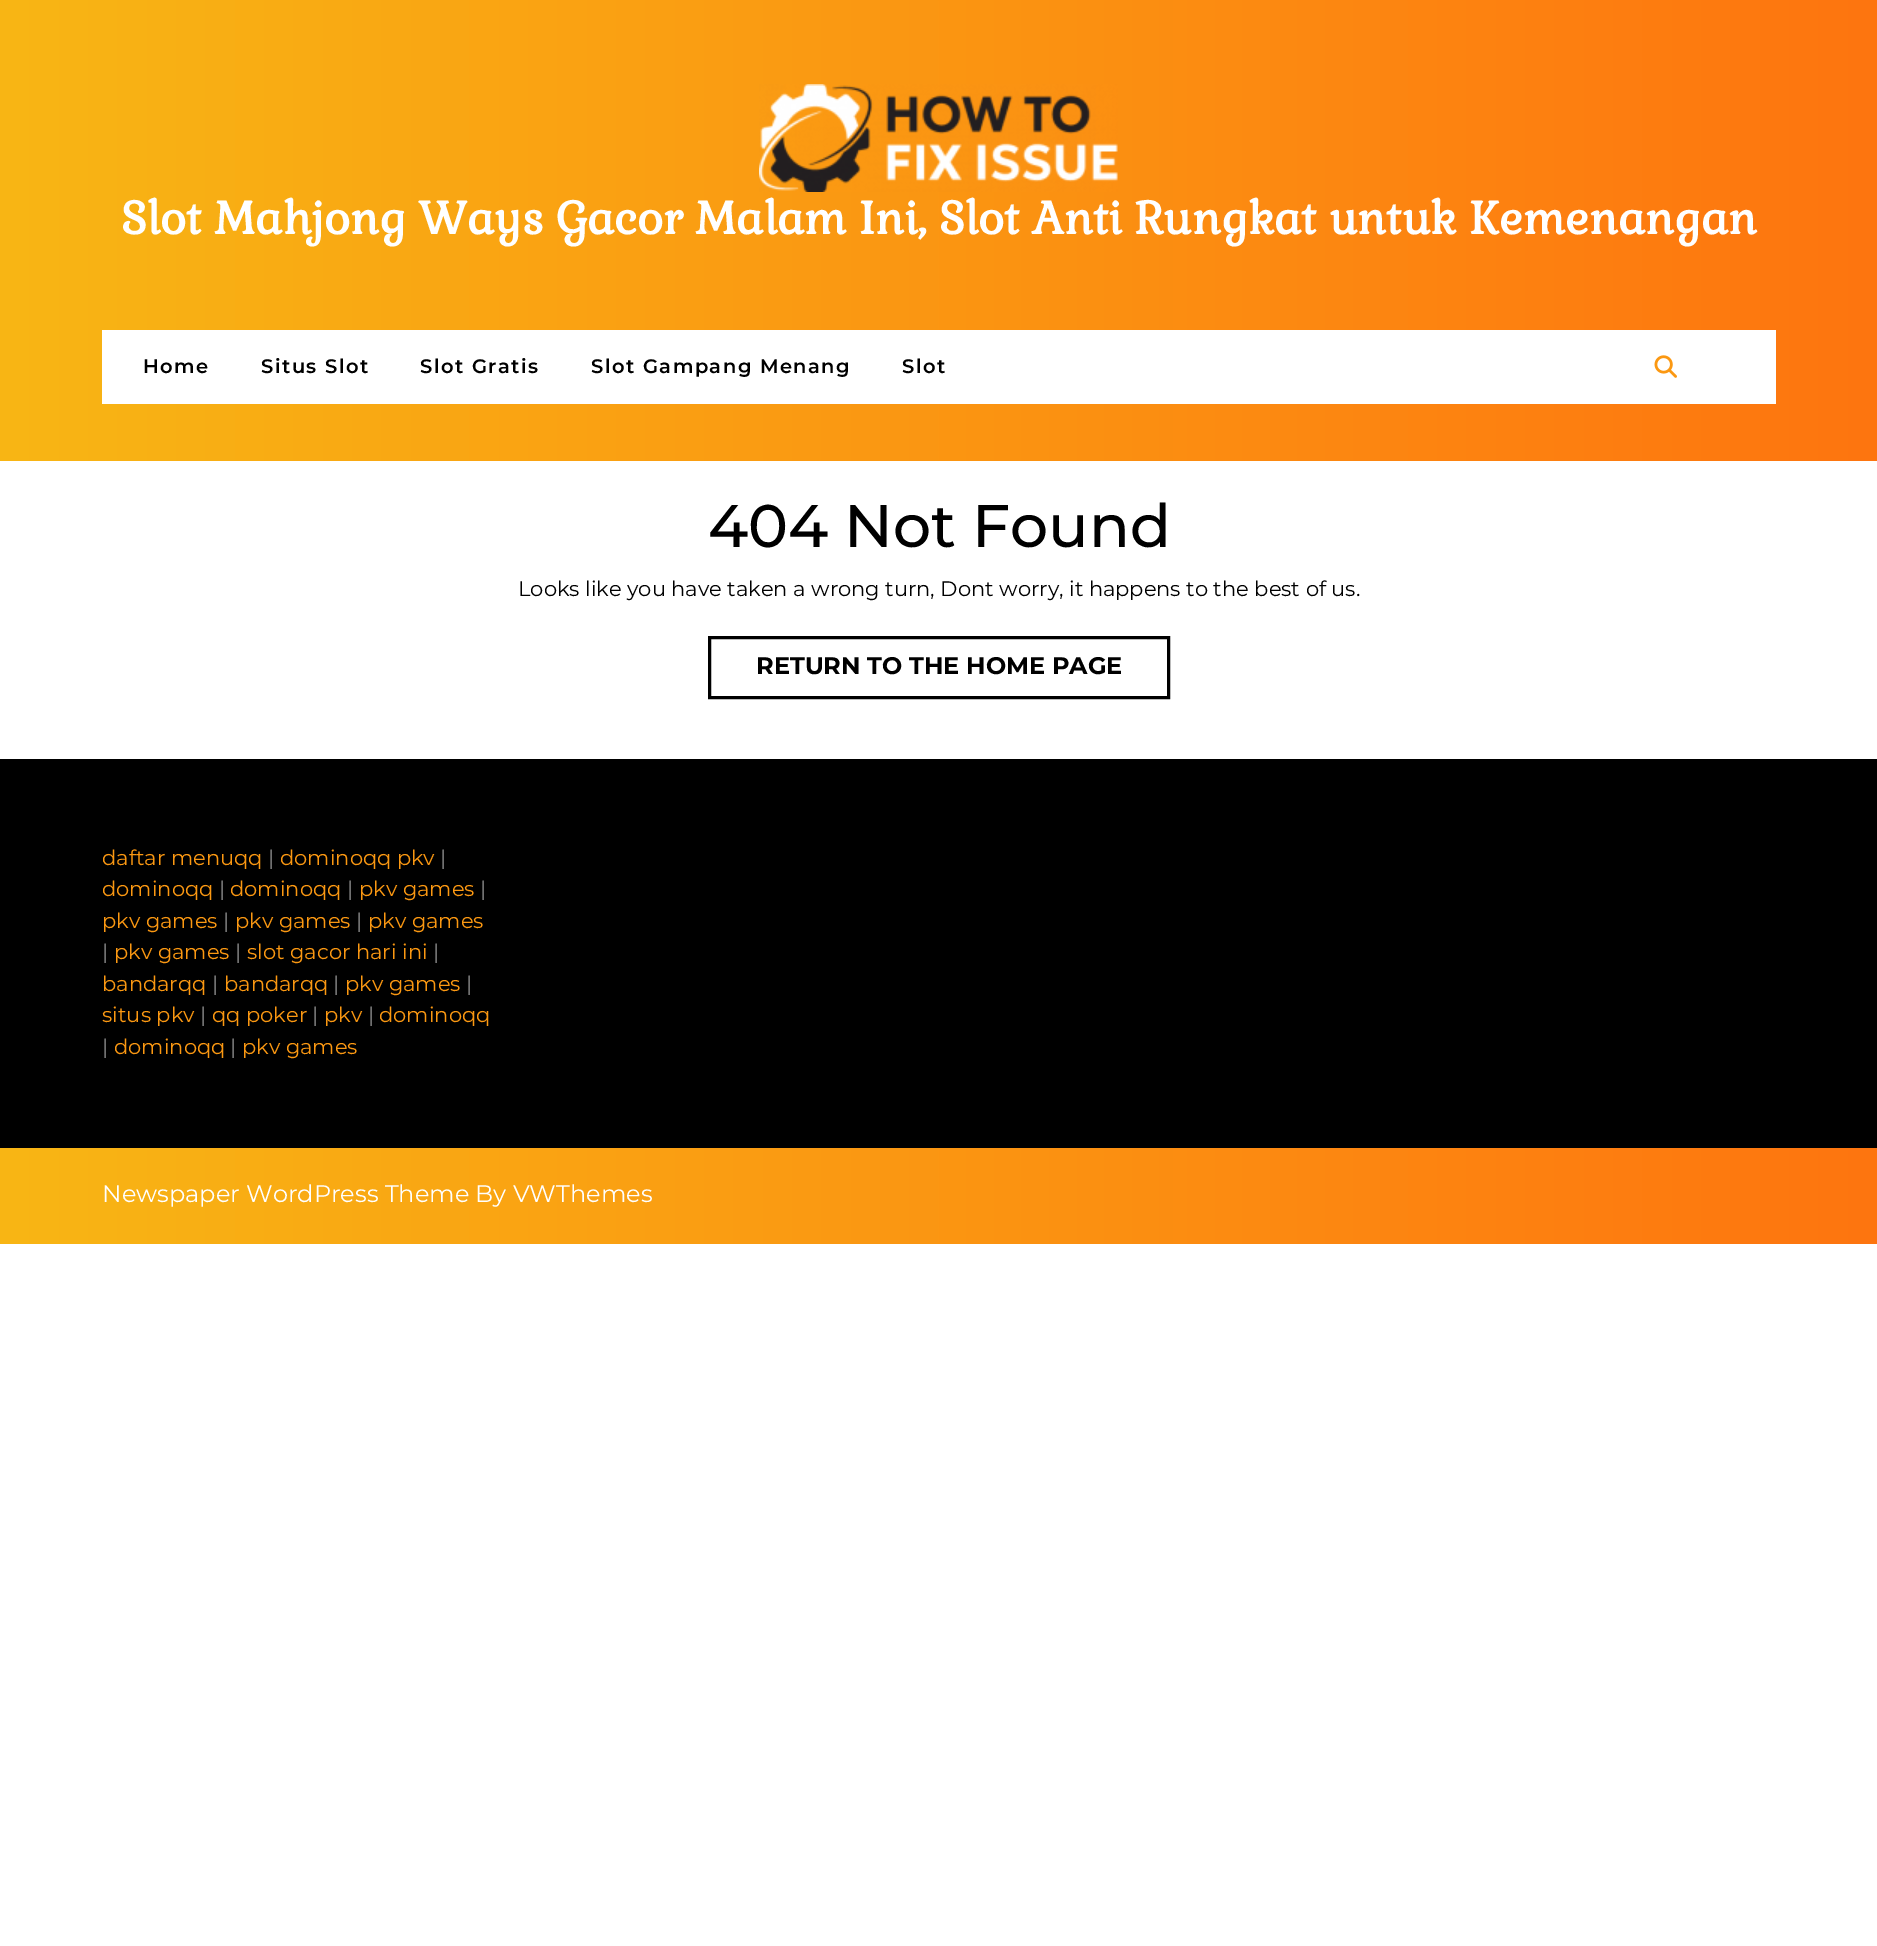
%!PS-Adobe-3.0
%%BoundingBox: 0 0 1877 1946
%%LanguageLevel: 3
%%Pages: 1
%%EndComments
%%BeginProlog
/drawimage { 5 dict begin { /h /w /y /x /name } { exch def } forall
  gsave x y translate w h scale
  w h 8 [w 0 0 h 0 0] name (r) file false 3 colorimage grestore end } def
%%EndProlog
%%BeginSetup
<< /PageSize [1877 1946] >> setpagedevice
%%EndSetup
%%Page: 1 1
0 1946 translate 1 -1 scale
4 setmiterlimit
1 setgray
0 0 1877 1946 rectfill
gsave newpath 0 0 moveto 1877 0 lineto 1877 461 lineto 0 461 lineto closepath clip newpath
<< /ShadingType 2 /ColorSpace /DeviceRGB /Coords [0 230 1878 230] /Extend [true true] /Function << /FunctionType 2 /Domain [0 1] /C0 [0.973 0.714 0.082] /C1 [0.996 0.459 0.059] /N 1 >> >> shfill grestore
(images/1.raw) 759 84 359 108 drawimage
102 330 1674 74 rectfill
(images/2.raw) 1654 355 23 23 drawimage
0 setgray
3 setlinewidth
709.5 637.5 459 60 rectstroke
0 759 1877 389 rectfill
gsave newpath 0 1148 moveto 1877 1148 lineto 1877 1244 lineto 0 1244 lineto closepath clip newpath
<< /ShadingType 2 /ColorSpace /DeviceRGB /Coords [0 1196 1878 1196] /Extend [true true] /Function << /FunctionType 2 /Domain [0 1] /C0 [0.973 0.714 0.082] /C1 [0.996 0.459 0.059] /N 1 >> >> shfill grestore
/Gabriela-Bold [45 0 0 -45 0 0] selectfont
1 setgray
121 234 moveto (Slot Mahjong Ways Gacor Malam Ini, Slot Anti Rungkat untuk Kemenangan) show
/Montserrat-SemiBold [19.5 0 0 -19.5 0 0] selectfont
0 setgray
143 373 moveto 1.5 0 (Home) ashow
261 373 moveto 1.5 0 (Situs Slot) ashow
420 373 moveto 1.5 0 (Slot Gratis) ashow
591 373 moveto 1.5 0 (Slot Gampang Menang) ashow
902 373 moveto 1.5 0 (Slot) ashow
/Montserrat-Medium [60 0 0 -60 0 0] selectfont
708 547 moveto (404 Not Found) show
/Montserrat-Regular [21 0 0 -21 0 0] selectfont
518 596 moveto (Looks like you have taken a wrong turn, Dont worry, it happens to the best of us.) show
/Montserrat-Bold [24 0 0 -24 0 0] selectfont
756 674 moveto (RETURN TO THE HOME PAGE) show
/Montserrat-Regular [21 0 0 -21 0 0] selectfont
0.984 0.596 0.071 setrgbcolor
102 865 moveto (daftar menuqq) show
0.6 setgray
268 865 moveto (|) show
0.984 0.596 0.071 setrgbcolor
280 865 moveto (dominoqq pkv) show
0.6 setgray
440 865 moveto (|) show
0.984 0.596 0.071 setrgbcolor
102 896 moveto (dominoqq) show
0.6 setgray
219 896 moveto (|) show
0.984 0.596 0.071 setrgbcolor
230 896 moveto (dominoqq) show
0.6 setgray
347 896 moveto (|) show
0.984 0.596 0.071 setrgbcolor
359 896 moveto (pkv games) show
0.6 setgray
480 896 moveto (|) show
0.984 0.596 0.071 setrgbcolor
102 928 moveto (pkv games) show
0.6 setgray
223 928 moveto (|) show
0.984 0.596 0.071 setrgbcolor
235 928 moveto (pkv games) show
0.6 setgray
356 928 moveto (|) show
0.984 0.596 0.071 setrgbcolor
368 928 moveto (pkv games) show
0.6 setgray
102 959 moveto (|) show
0.984 0.596 0.071 setrgbcolor
114 959 moveto (pkv games) show
0.6 setgray
235 959 moveto (|) show
0.984 0.596 0.071 setrgbcolor
247 959 moveto (slot gacor hari ini) show
0.6 setgray
433 959 moveto (|) show
0.984 0.596 0.071 setrgbcolor
102 991 moveto (bandarqq) show
0.6 setgray
212 991 moveto (|) show
0.984 0.596 0.071 setrgbcolor
224 991 moveto (bandarqq) show
0.6 setgray
333 991 moveto (|) show
0.984 0.596 0.071 setrgbcolor
345 991 moveto (pkv games) show
0.6 setgray
466 991 moveto (|) show
0.984 0.596 0.071 setrgbcolor
102 1022 moveto (situs pkv) show
0.6 setgray
200 1022 moveto (|) show
0.984 0.596 0.071 setrgbcolor
212 1022 moveto (qq poker) show
0.6 setgray
312 1022 moveto (|) show
0.984 0.596 0.071 setrgbcolor
324 1022 moveto (pkv) show
0.6 setgray
368 1022 moveto (|) show
0.984 0.596 0.071 setrgbcolor
379 1022 moveto (dominoqq) show
0.6 setgray
102 1054 moveto (|) show
0.984 0.596 0.071 setrgbcolor
114 1054 moveto (dominoqq) show
0.6 setgray
230 1054 moveto (|) show
0.984 0.596 0.071 setrgbcolor
242 1054 moveto (pkv games) show
/Montserrat-Regular [24 0 0 -24 0 0] selectfont
1 setgray
102 1202 moveto (Newspaper WordPress Theme By VWThemes) show
showpage
%%EOF
